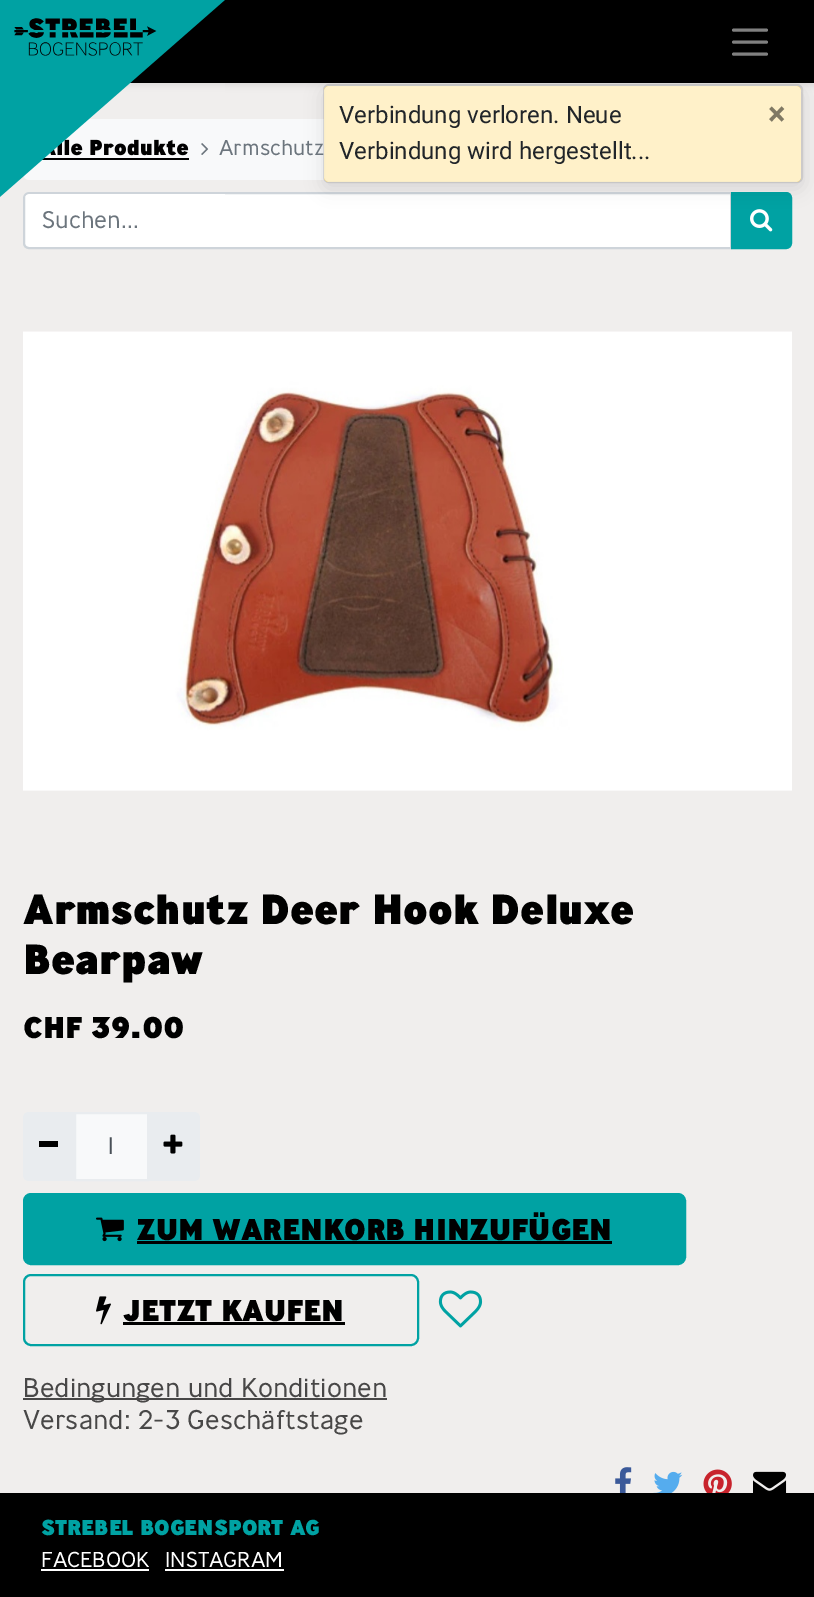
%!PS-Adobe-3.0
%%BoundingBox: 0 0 814 1597
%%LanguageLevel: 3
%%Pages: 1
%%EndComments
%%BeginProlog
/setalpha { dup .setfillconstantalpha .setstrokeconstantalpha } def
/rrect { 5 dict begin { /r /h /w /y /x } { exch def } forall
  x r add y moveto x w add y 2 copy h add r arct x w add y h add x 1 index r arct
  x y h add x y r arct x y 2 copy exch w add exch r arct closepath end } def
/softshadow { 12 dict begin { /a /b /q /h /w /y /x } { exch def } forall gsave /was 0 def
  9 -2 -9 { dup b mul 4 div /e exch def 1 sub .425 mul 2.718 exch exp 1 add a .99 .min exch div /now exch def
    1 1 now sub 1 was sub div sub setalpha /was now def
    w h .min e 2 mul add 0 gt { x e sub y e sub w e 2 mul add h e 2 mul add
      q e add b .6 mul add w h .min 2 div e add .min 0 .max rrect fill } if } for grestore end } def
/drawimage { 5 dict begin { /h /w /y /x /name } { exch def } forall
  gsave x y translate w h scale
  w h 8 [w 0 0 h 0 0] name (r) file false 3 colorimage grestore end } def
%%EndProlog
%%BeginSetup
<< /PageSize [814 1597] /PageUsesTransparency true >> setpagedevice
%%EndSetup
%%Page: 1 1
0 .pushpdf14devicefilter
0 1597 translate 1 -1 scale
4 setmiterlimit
0.941 0.933 0.929 setrgbcolor
0 0 814 1597 rectfill
0 setgray
0 3 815 83 0 3 0.07 softshadow
130 0 684 83 rectfill
0.973 0.976 0.98 setrgbcolor
23 119 769 61 6 rrect fill
1 setgray
newpath 29 193 moveto 731 193 lineto 731 248 lineto 29 248 lineto 26 248 24 246 24 243 curveto 24 198 lineto 24 195 26 193 29 193 curveto closepath gsave fill grestore
0.808 0.831 0.855 setrgbcolor
2 setlinewidth
stroke
0 0.635 0.639 setrgbcolor
newpath 732 193 moveto 786 193 lineto 789 193 791 195 791 198 curveto 791 243 lineto 791 246 789 248 786 248 curveto 732 248 lineto closepath gsave fill grestore
stroke
(images/3.raw) 750 209 23 23 drawimage
0 setgray
323 90 480 99 6 9 0.1 softshadow
1 0.757 0.027 setrgbcolor
324 86 477 96 5 rrect fill
0.502 setgray
3 setlinewidth
1 setlinecap
newpath 733.5 30 moveto 766.5 30 lineto 733.5 42 moveto 766.5 42 lineto 733.5 54 moveto 766.5 54 lineto stroke
0 setgray
41 158 148 2 rectfill
(images/2.raw) 201 143 8 12 drawimage
(images/4.raw) 23 331 769 460 drawimage
0.973 0.976 0.98 setrgbcolor
newpath 75 1113 moveto 148 1113 lineto 148 1180 lineto 75 1180 lineto closepath gsave fill grestore
0.914 0.925 0.937 setrgbcolor
2 setlinewidth
0 setlinecap
stroke
newpath 29 1112 moveto 75 1112 lineto 75 1181 lineto 29 1181 lineto 25.5 1181 23 1178.5 23 1175 curveto 23 1118 lineto 23 1114.5 25.5 1112 29 1112 curveto closepath fill
0 setgray
39 1141 19 6 rectfill
0.914 0.925 0.937 setrgbcolor
newpath 147 1112 moveto 194 1112 lineto 197.5 1112 200 1114.5 200 1118 curveto 200 1175 lineto 200 1178.5 197.5 1181 194 1181 curveto 147 1181 lineto closepath fill
(images/5.raw) 163 1134 20 20 drawimage
0 0.635 0.639 setrgbcolor
24 1194 661 70 7 rrect gsave fill grestore
stroke
(images/6.raw) 96 1217 28 25 drawimage
0 setgray
137 1241 475 3 rectfill
0 0.635 0.639 setrgbcolor
24 1275 394 70 7 rrect stroke
(images/7.raw) 96 1296 15 29 drawimage
0 setgray
123 1322 222 3 rectfill
(images/8.raw) 438 1290 45 38 drawimage
0.282 0.278 0.278 setrgbcolor
23 1398 364 2 rectfill
(images/9.raw) 615 1467 17 26 drawimage
(images/10.raw) 653 1471 30 22 drawimage
(images/11.raw) 703 1469 29 24 drawimage
(images/12.raw) 753 1471 34 22 drawimage
0 setgray
0 1493 814 104 rectfill
1 setgray
41 1569 108 2 rectfill
165 1569 119 2 rectfill
/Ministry-Black [21.6 0 0 -21.6 0 0] selectfont
0 setgray
56 155 moveto (lle Produkte) show
/Ministry-Light [21.6 0 0 -21.6 0 0] selectfont
0.424 0.459 0.49 setrgbcolor
219 155 moveto (Armschutz) show
0.1 setalpha
0 setgray
324 85 478 97 5 rrect stroke
0.78 setalpha
1 setgray
324 86 477 96 5 rrect fill
/Roboto-Bold [33 0 0 -33 0 0] selectfont
1 setalpha
0.502 0.475 0.392 setrgbcolor
768 125 moveto (×) show
/Roboto-Regular [24 0 0 -24 0 0] selectfont
0.129 0.145 0.161 setrgbcolor
339 159 moveto (Verbindung wird hergestellt...) show
339 123 moveto (Verbindung verloren. Neue) show
(images/1.raw) 0 0 225 197 drawimage
/Ministry-Light [24 0 0 -24 0 0] selectfont
0.424 0.459 0.49 setrgbcolor
42 228 moveto (Suchen...) show
/Ministry-Black [42 0 0 -42 0 0] selectfont
0 setgray
23 924 moveto (Armschutz Deer Hook Deluxe) show
23 974 moveto (Bearpaw) show
/Ministry-Black [30 0 0 -30 0 0] selectfont
23 1038 moveto (CHF 39.00) show
/Ministry-Light [24 0 0 -24 0 0] selectfont
0.286 0.314 0.341 setrgbcolor
108 1154 moveto (1) show
/Ministry-Black [30 0 0 -30 0 0] selectfont
0 setgray
136 1240 moveto (ZUM WARENKORB HINZUFÜGEN) show
123 1321 moveto (JETZT KAUFEN) show
/Ministry-Light [27 0 0 -27 0 0] selectfont
0.282 0.278 0.278 setrgbcolor
23 1397 moveto (Bedingungen und Konditionen) show
23 1429 moveto (Versand: 2-3 Geschäftstage) show
/Ministry-Black [21.6 0 0 -21.6 0 0] selectfont
0 0.635 0.639 setrgbcolor
41 1535 moveto (STREBEL BOGENSPORT AG) show
/Ministry-Light [21.6 0 0 -21.6 0 0] selectfont
1 setgray
41 1567 moveto (FACEBOOK) show
165 1567 moveto (INSTAGRAM) show
.poppdf14devicefilter showpage
%%EOF
